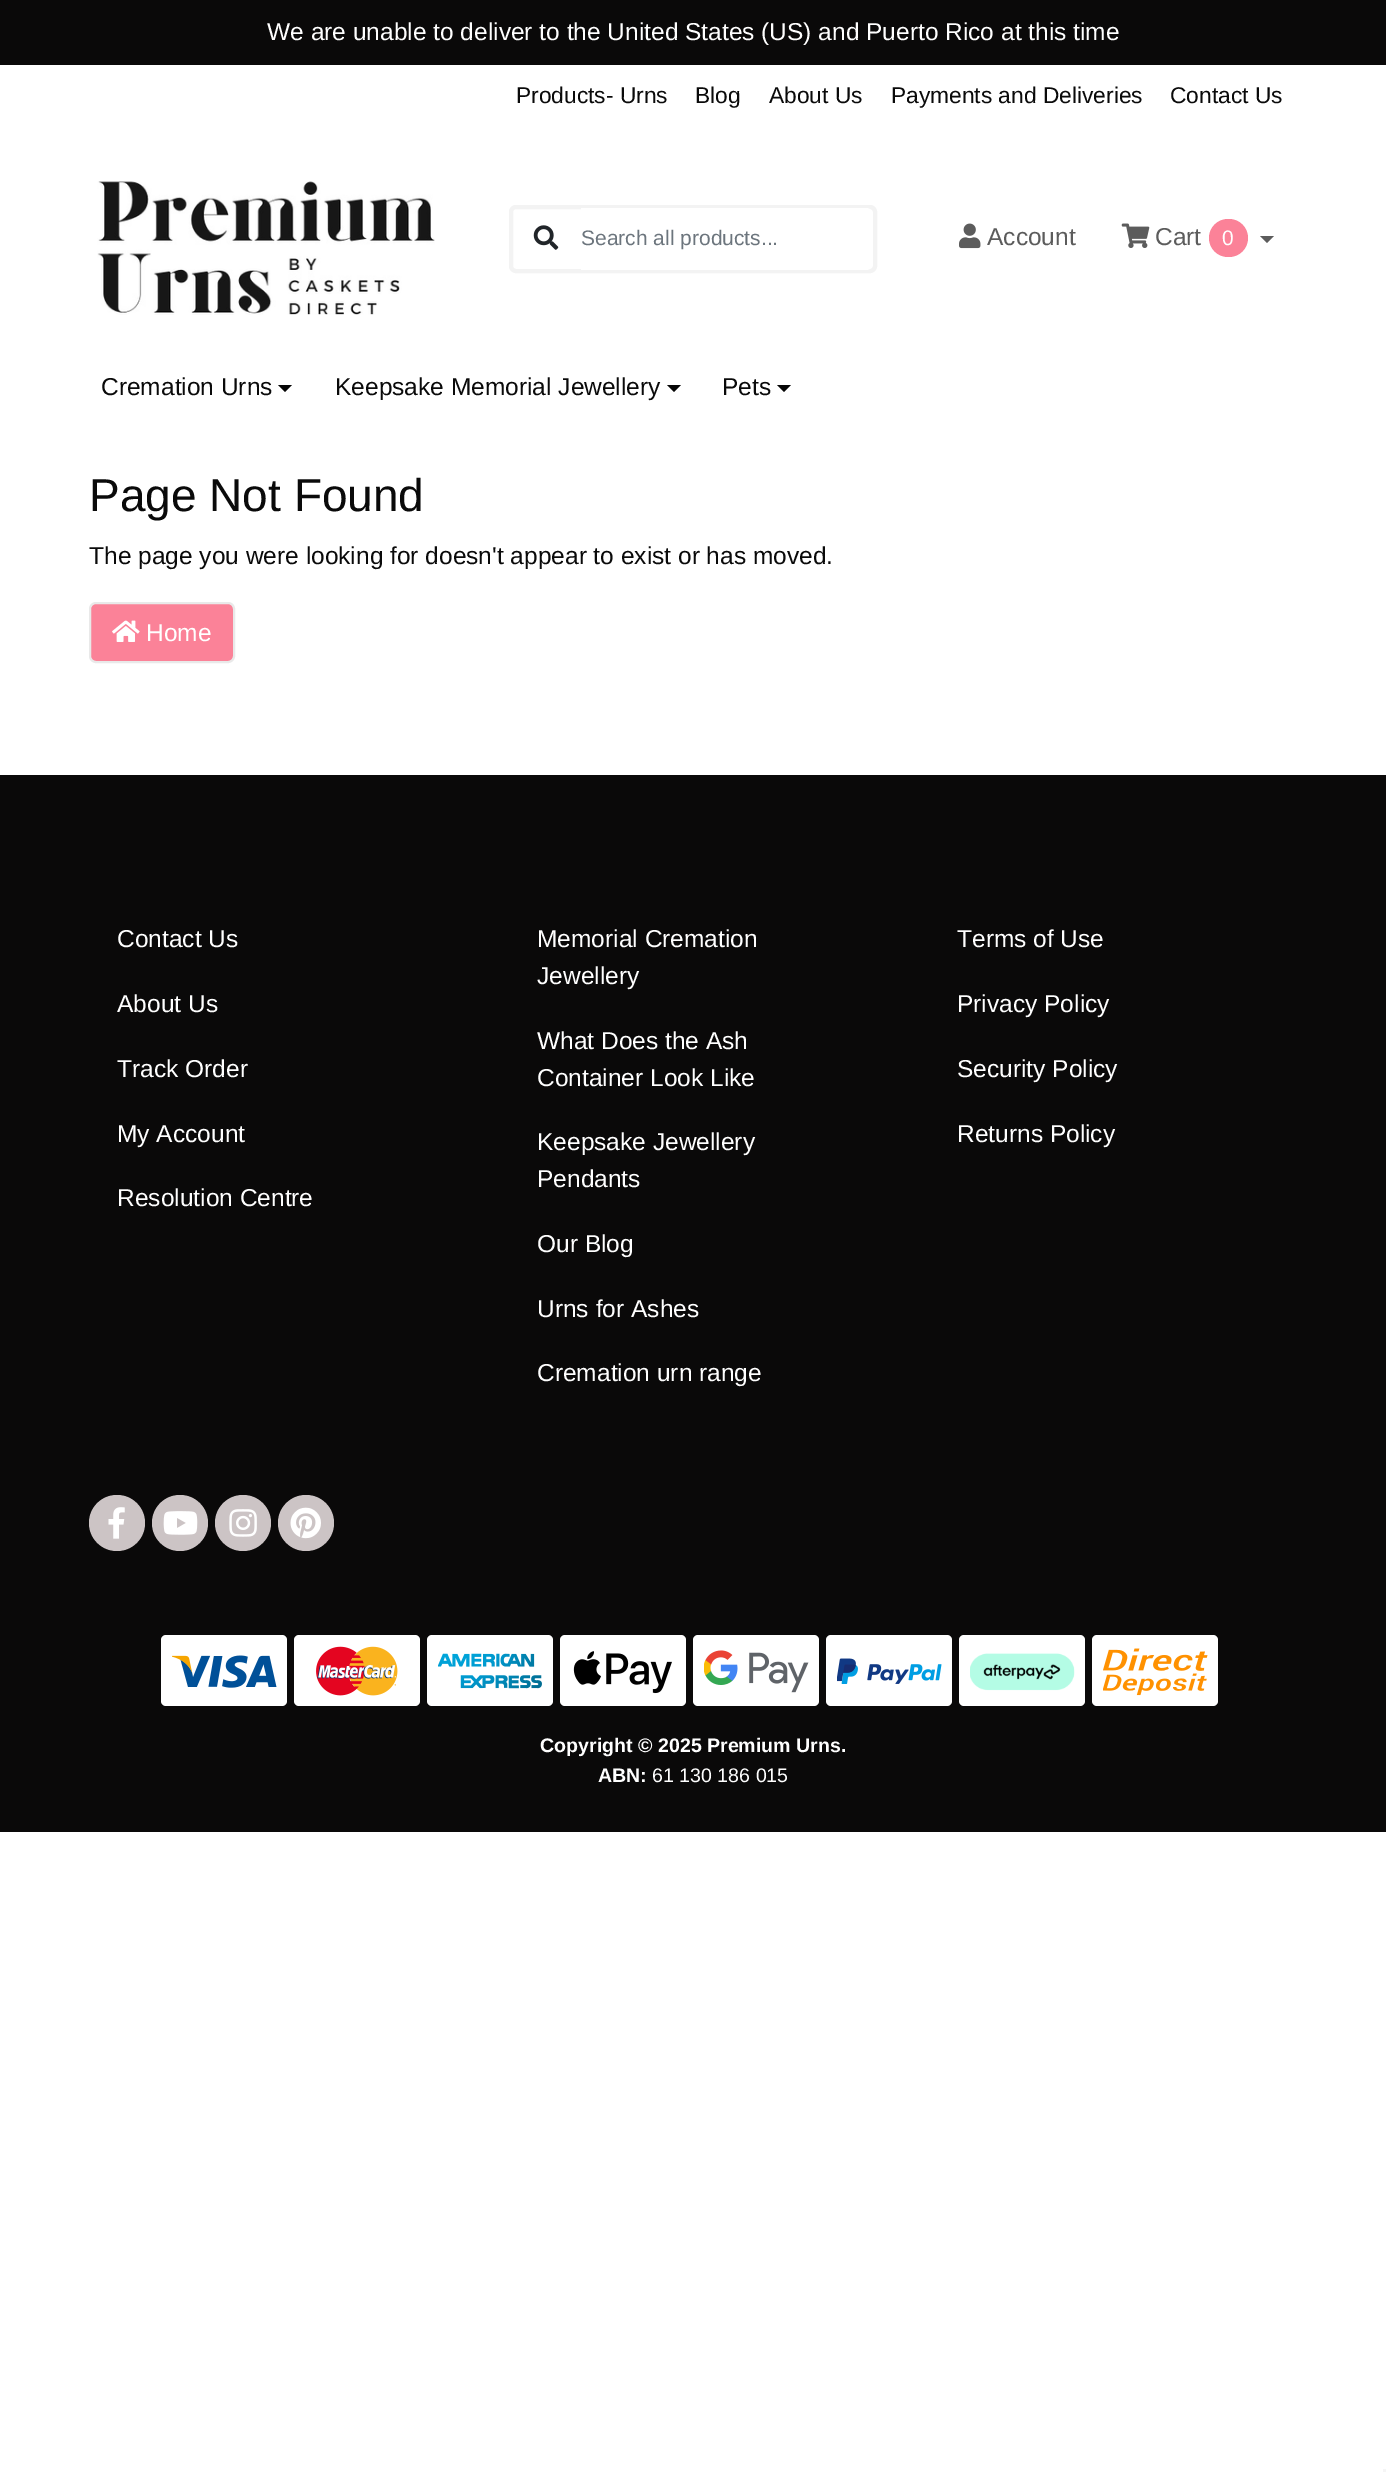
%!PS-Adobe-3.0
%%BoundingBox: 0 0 1386 2472
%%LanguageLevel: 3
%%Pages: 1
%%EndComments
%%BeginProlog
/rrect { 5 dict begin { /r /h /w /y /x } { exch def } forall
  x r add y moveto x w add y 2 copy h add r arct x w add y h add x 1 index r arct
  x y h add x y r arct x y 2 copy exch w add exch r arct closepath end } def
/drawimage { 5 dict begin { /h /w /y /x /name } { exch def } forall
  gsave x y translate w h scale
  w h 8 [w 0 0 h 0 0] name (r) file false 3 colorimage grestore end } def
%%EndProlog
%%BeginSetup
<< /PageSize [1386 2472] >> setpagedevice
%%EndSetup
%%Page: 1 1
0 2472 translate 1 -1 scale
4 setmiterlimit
1 setgray
0 0 1386 2472 rectfill
0.039 0.035 0.035 setrgbcolor
0 0 1386 65 rectfill
(images/1.raw) 97 181 338 134 drawimage
0.953 setgray
4 setlinewidth
511 207 364 64 5 rrect stroke
(images/2.raw) 533 225 26 25 drawimage
1 setgray
newpath 581 208 moveto 866 208 lineto 870 208 873 211 873 215 curveto 873 263 lineto 873 267 870 270 866 270 curveto 581 270 lineto closepath fill
(images/3.raw) 959 223 22 26 drawimage
(images/4.raw) 1121 223 29 25 drawimage
0.984 0.51 0.596 setrgbcolor
1209 219 39 38 19 rrect fill
0.361 setgray
newpath 1260 236 moveto 1274 236 lineto 1267 243 lineto closepath fill
0.02 setgray
newpath 278 385 moveto 292 385 lineto 285 392 lineto closepath fill
newpath 667 385 moveto 681 385 lineto 674 392 lineto closepath fill
newpath 777 385 moveto 791 385 lineto 784 392 lineto closepath fill
0.984 0.51 0.596 setrgbcolor
90 603 144 59 6 rrect gsave fill grestore
0.914 setgray
2 setlinewidth
stroke
(images/5.raw) 112 620 28 22 drawimage
0.039 0.035 0.035 setrgbcolor
0 775 1386 1057 rectfill
0.8 0.769 0.773 setrgbcolor
newpath 117 1523 28 0 360 arc closepath fill
(images/6.raw) 108 1507 17 32 drawimage
newpath 180 1523 28 0 360 arc closepath fill
(images/7.raw) 163 1511 35 24 drawimage
newpath 243 1523 28 0 360 arc closepath fill
(images/8.raw) 229 1509 28 28 drawimage
newpath 306 1523 28 0 360 arc closepath fill
(images/9.raw) 290 1507 31 32 drawimage
1 setgray
161 1635 126 71 5 rrect fill
(images/10.raw) 172 1655 105 33 drawimage
294 1635 126 71 5 rrect fill
(images/11.raw) 316 1646 82 50 drawimage
427 1635 126 71 5 rrect fill
(images/12.raw) 438 1653 104 36 drawimage
560 1635 126 71 5 rrect fill
(images/13.raw) 573 1651 99 43 drawimage
693 1635 126 71 5 rrect fill
(images/14.raw) 704 1650 105 43 drawimage
826 1635 126 71 5 rrect fill
(images/15.raw) 837 1658 105 26 drawimage
959 1635 126 71 5 rrect fill
(images/16.raw) 970 1653 105 38 drawimage
1092 1635 126 71 5 rrect fill
(images/17.raw) 1103 1648 105 48 drawimage
0.961 setgray
1383 2469 3 3 rectfill
/LiberationSans-Regular [24.5 0 0 -24.5 0 0] selectfont
1 setgray
267 40 moveto (We are unable to deliver to the United States \(US\) and Puerto Rico at this time) show
/LiberationSans-Regular [22.75 0 0 -22.75 0 0] selectfont
0.039 setgray
516 103 moveto (Products- Urns) show
695 103 moveto (Blog) show
769 103 moveto (About Us) show
891 103 moveto (Payments and Deliveries) show
1170 103 moveto (Contact Us) show
/LiberationSans-Regular [21 0 0 -21 0 0] selectfont
0.424 0.459 0.49 setrgbcolor
581 245 moveto (Search all products...) show
/LiberationSans-Regular [24.5 0 0 -24.5 0 0] selectfont
0.361 setgray
987 245 moveto (Account) show
1155 245 moveto (Cart) show
/LiberationSans-Regular [21 0 0 -21 0 0] selectfont
1 setgray
1222 245 moveto (0) show
/LiberationSans-Regular [24.5 0 0 -24.5 0 0] selectfont
0.039 setgray
101 395 moveto (Cremation Urns) show
335 395 moveto (Keepsake Memorial Jewellery) show
722 395 moveto (Pets) show
/LiberationSans-Regular [46 0 0 -46 0 0] selectfont
89 511 moveto (Page Not Found) show
/LiberationSans-Regular [24.5 0 0 -24.5 0 0] selectfont
89 564 moveto (The page you were looking for doesn't appear to exist or has moved.) show
1 setgray
146 641 moveto (Home) show
117 947 moveto (Contact Us) show
117 1012 moveto (About Us) show
117 1077 moveto (Track Order) show
117 1142 moveto (My Account) show
117 1206 moveto (Resolution Centre) show
537 947 moveto (Memorial Cremation) show
537 984 moveto (Jewellery) show
537 1049 moveto (What Does the Ash) show
537 1086 moveto (Container Look Like) show
537 1150 moveto (Keepsake Jewellery) show
537 1187 moveto (Pendants) show
537 1252 moveto (Our Blog) show
537 1317 moveto (Urns for Ashes) show
537 1381 moveto (Cremation urn range) show
957 947 moveto (Terms of Use) show
957 1012 moveto (Privacy Policy) show
957 1077 moveto (Security Policy) show
957 1142 moveto (Returns Policy) show
/LiberationSans-Bold [19.6 0 0 -19.6 0 0] selectfont
540 1752 moveto (Copyright © 2025 Premium Urns.) show
598 1782 moveto (ABN:) show
/LiberationSans-Regular [19.6 0 0 -19.6 0 0] selectfont
652 1782 moveto (61 130 186 015) show
showpage
%%EOF
